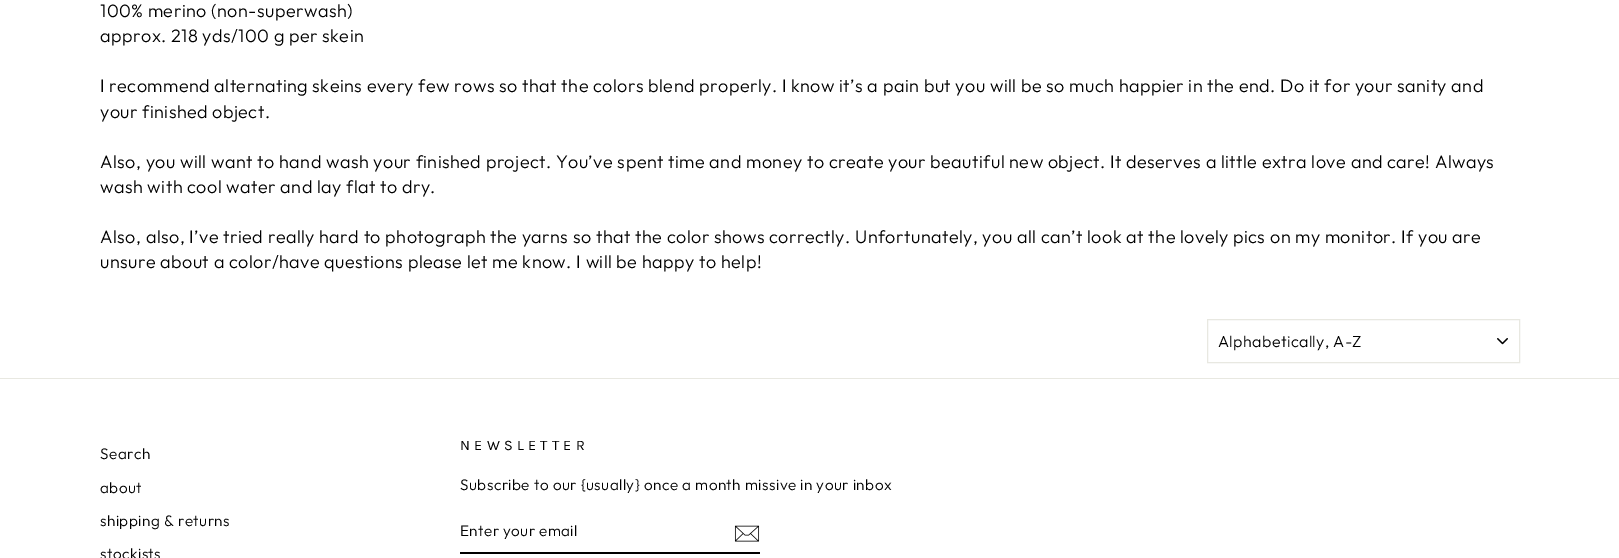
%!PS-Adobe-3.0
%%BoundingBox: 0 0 1619 558
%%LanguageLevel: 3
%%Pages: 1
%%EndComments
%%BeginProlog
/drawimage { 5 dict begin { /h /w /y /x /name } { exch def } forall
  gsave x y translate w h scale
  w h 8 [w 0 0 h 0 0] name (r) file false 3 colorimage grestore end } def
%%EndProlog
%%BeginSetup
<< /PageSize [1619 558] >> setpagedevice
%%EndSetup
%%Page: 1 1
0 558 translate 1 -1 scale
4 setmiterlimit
1 setgray
0 0 1619 558 rectfill
(images/1.raw) 1497 338 11 7 drawimage
0.91 0.91 0.882 setrgbcolor
1207.5 319.5 312 43 rectstroke
0 378 1619 1 rectfill
0 setgray
460 552 300 2 rectfill
(images/2.raw) 734 525 26 17 drawimage
/Outfit-Light [18 0 0 -18 0 0] selectfont
100 17 moveto 0.45 0 (100% merino \(non-superwash\)) ashow
100 42 moveto 0.45 0 (approx. 218 yds/100 g per skein) ashow
100 92 moveto 0.45 0 (I recommend alternating skeins every few rows so that the colors blend properly. I know it’s a pain but you will be so much happier in the end. Do it for your sanity and) ashow
100 118 moveto 0.45 0 (your finished object.) ashow
100 168 moveto 0.45 0 (Also, you will want to hand wash your finished project. You’ve spent time and money to create your beautiful new object. It deserves a little extra love and care! Always) ashow
100 193 moveto 0.45 0 (wash with cool water and lay flat to dry.) ashow
100 243 moveto 0.45 0 (Also, also, I’ve tried really hard to photograph the yarns so that the color shows correctly. Unfortunately, you all can’t look at the lovely pics on my monitor. If you are) ashow
100 268 moveto 0.45 0 (unsure about a color/have questions please let me know. I will be happy to help!) ashow
/Outfit-Light [16 0 0 -16 0 0] selectfont
1218 347 moveto 0.4 0 (Alphabetically, A-Z) ashow
/Outfit-Light [15.3 0 0 -15.3 0 0] selectfont
100 459 moveto 0.45 0 (Search) ashow
100 493 moveto 0.45 0 (about) ashow
100 526 moveto 0.45 0 (shipping & returns) ashow
100 559 moveto 0.45 0 (stockists) ashow
/Karla-Regular [14.5 0 0 -14.5 0 0] selectfont
460 450 moveto 4.25 0 (NEWSLETTER) ashow
/Outfit-Light [15.3 0 0 -15.3 0 0] selectfont
460 490 moveto 0.45 0 (Subscribe to our {usually} once a month missive in your inbox) ashow
460 536 moveto 0.4 0 (Enter your email) ashow
showpage
%%EOF
